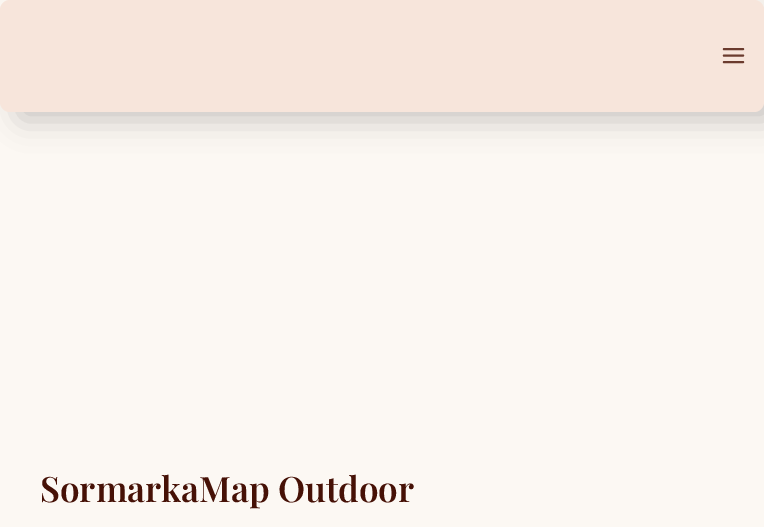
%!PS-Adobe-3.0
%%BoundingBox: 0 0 764 527
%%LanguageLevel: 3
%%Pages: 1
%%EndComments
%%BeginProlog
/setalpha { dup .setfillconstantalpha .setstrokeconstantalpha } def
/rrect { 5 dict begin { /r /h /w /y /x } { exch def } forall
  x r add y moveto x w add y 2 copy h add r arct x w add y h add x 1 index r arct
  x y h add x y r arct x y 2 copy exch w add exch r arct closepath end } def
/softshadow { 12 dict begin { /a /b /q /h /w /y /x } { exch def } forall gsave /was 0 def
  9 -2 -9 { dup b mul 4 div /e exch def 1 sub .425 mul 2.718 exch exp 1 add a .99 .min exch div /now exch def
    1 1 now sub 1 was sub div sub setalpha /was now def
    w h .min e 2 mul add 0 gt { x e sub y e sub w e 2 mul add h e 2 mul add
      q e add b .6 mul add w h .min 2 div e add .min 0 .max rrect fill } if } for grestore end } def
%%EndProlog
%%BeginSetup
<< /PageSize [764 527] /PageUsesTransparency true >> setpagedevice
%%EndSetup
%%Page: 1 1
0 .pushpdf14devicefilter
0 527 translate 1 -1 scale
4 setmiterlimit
0.988 0.973 0.953 setrgbcolor
0 0 764 527 rectfill
0 setgray
18 18 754 102 5 15 0.2 softshadow
0.969 0.898 0.859 setrgbcolor
0 0 764 112 10 rrect fill
0.42 0.231 0.18 setrgbcolor
2.1 setlinewidth
1 setlinecap
1 setlinejoin
newpath 724 55.5 moveto 743 55.5 lineto 724 49 moveto 743 49 lineto 724 62 moveto 743 62 lineto stroke
/PlayfairDisplay-SemiBold [35 0 0 -35 0 0] selectfont
0.275 0.067 0.024 setrgbcolor
40 502 moveto (SormarkaMap Outdoor) show
.poppdf14devicefilter showpage
%%EOF
